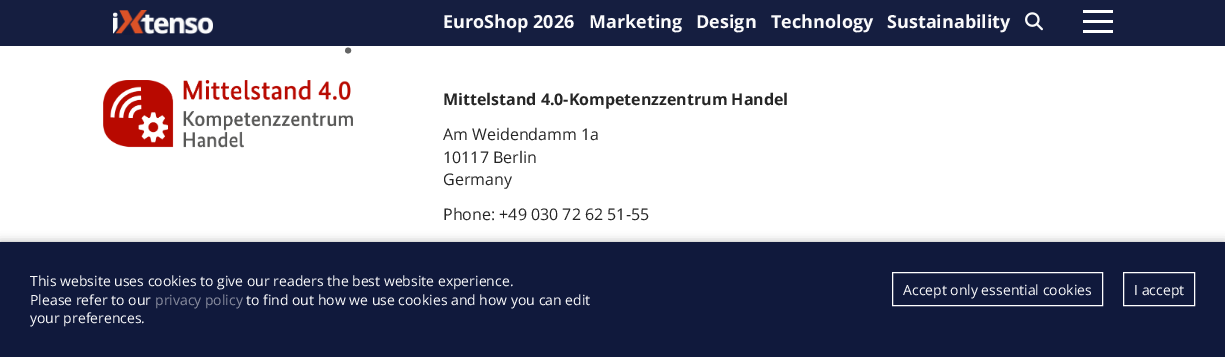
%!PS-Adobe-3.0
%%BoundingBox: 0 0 1225 357
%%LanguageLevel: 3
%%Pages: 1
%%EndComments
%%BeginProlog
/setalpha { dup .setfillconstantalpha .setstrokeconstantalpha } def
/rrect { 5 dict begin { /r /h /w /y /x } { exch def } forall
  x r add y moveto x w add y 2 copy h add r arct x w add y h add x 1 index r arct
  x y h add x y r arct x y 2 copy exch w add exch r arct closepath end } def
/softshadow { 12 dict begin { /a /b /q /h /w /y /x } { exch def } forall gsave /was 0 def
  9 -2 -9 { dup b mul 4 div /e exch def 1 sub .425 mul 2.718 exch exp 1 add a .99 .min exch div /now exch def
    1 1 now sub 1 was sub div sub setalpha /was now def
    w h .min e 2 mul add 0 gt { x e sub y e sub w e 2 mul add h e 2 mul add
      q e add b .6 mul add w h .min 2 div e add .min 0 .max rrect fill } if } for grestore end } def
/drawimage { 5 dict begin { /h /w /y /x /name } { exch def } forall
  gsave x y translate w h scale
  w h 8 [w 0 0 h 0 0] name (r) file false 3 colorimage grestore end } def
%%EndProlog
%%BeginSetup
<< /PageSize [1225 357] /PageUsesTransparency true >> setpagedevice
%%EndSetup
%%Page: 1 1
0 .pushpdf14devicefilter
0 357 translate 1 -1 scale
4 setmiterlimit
1 setgray
0 0 1225 357 rectfill
0.98 setalpha
0.063 0.098 0.235 setrgbcolor
0 0 1225 46 rectfill
1 setalpha
(images/1.raw) 113 10 100 25 drawimage
(images/2.raw) 1025 12 18 19 drawimage
1 setgray
1083 10 30 3 rectfill
1083 20 30 3 rectfill
1083 30 30 3 rectfill
(images/3.raw) 103 80 250 68 drawimage
0 setgray
0 242 1225 115 0 5 0.3 softshadow
0.063 0.098 0.235 setrgbcolor
0 242 1225 115 rectfill
1 setgray
892.5 272.5 210 33 rectstroke
1123.5 272.5 71 33 rectstroke
/OpenSans-Bold [18 0 0 -18 0 0] selectfont
0.98 0.98 0.984 setrgbcolor
443 28 moveto (EuroShop 2026) show
589 28 moveto (Marketing) show
696 28 moveto (Design) show
771 28 moveto (Technology) show
887 28 moveto (Sustainability) show
/OpenSans-Bold [36 0 0 -36 0 0] selectfont
0.392 0.396 0.396 setrgbcolor
343 53 moveto (.) show
/OpenSans-Bold [16 0 0 -16 0 0] selectfont
0.149 setgray
443 105 moveto (Mittelstand 4.0-Kompetenzzentrum Handel) show
/OpenSans-Regular [16 0 0 -16 0 0] selectfont
443 140 moveto (Am Weidendamm 1a) show
443 163 moveto (10117 Berlin) show
443 185 moveto (Germany) show
443 220 moveto (Phone: +49 030 72 62 51-55) show
/OpenSans-Regular [14 0 0 -14 0 0] selectfont
0.98 0.98 0.984 setrgbcolor
30 286 moveto (This website uses cookies to give our readers the best website experience.) show
30 305 moveto (Please refer to our) show
0.533 0.549 0.62 setrgbcolor
155 305 moveto (privacy policy) show
0.98 0.98 0.984 setrgbcolor
246 305 moveto (to find out how we use cookies and how you can edit) show
30 323 moveto (your preferences.) show
903 295 moveto (Accept only essential cookies) show
1134 295 moveto (I accept) show
.poppdf14devicefilter showpage
%%EOF
